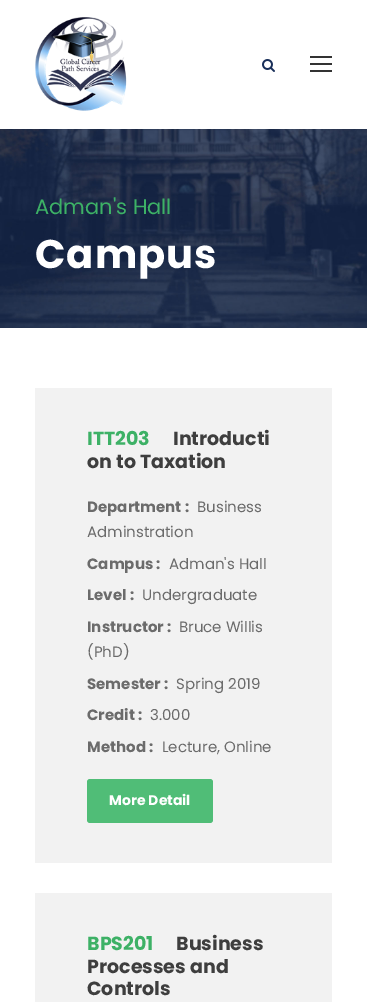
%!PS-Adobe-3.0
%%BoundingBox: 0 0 367 1002
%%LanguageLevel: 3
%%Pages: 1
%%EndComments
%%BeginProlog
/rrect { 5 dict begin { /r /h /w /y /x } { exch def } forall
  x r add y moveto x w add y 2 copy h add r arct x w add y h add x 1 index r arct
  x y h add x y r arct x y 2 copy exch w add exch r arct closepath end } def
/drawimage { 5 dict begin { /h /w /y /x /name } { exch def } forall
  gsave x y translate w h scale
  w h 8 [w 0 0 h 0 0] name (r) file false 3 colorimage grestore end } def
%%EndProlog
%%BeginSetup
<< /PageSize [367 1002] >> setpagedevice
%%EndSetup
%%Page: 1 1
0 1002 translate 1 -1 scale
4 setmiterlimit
1 setgray
0 0 367 1002 rectfill
(images/1.raw) 35 17 92 94 drawimage
(images/2.raw) 262 59 13 13 drawimage
0.2 setgray
310 56 22 2 rectfill
310 63 22 2 rectfill
310 70 22 2 rectfill
(images/3.raw) 0 129 367 199 drawimage
0.949 setgray
35 388 297 475 rectfill
0.314 0.741 0.467 setrgbcolor
87 779 126 44 3 rrect fill
0.949 setgray
35 893 297 109 rectfill
/Poppins-Regular [21 0 0 -21 0 0] selectfont
0.239 0.694 0.4 setrgbcolor
35 214 moveto (Adman's Hall) show
/Poppins-Bold [40 0 0 -40 0 0] selectfont
1 setgray
35 268 moveto 1 0 (Campus) ashow
/Poppins-Bold [19 0 0 -19 0 0] selectfont
0.239 0.694 0.4 setrgbcolor
87 445 moveto (ITT203) show
0.243 setgray
173 445 moveto (Introducti) show
87 468 moveto (on to Taxation) show
/Poppins-Bold [15 0 0 -15 0 0] selectfont
0.42 setgray
87 512 moveto (Department :) show
/Poppins-Regular [15 0 0 -15 0 0] selectfont
197 512 moveto (Business) show
87 537 moveto (Adminstration) show
/Poppins-Bold [15 0 0 -15 0 0] selectfont
87 569 moveto (Campus :) show
/Poppins-Regular [15 0 0 -15 0 0] selectfont
169 569 moveto (Adman's Hall) show
/Poppins-Bold [15 0 0 -15 0 0] selectfont
87 600 moveto (Level :) show
/Poppins-Regular [15 0 0 -15 0 0] selectfont
142 600 moveto (Undergraduate) show
/Poppins-Bold [15 0 0 -15 0 0] selectfont
87 632 moveto (Instructor :) show
/Poppins-Regular [15 0 0 -15 0 0] selectfont
179 632 moveto (Bruce Willis) show
87 657 moveto (\(PhD\)) show
/Poppins-Bold [15 0 0 -15 0 0] selectfont
87 689 moveto (Semester :) show
/Poppins-Regular [15 0 0 -15 0 0] selectfont
176 689 moveto (Spring 2019) show
/Poppins-Bold [15 0 0 -15 0 0] selectfont
87 720 moveto (Credit :) show
/Poppins-Regular [15 0 0 -15 0 0] selectfont
150 720 moveto (3.000) show
/Poppins-Bold [15 0 0 -15 0 0] selectfont
87 752 moveto (Method :) show
/Poppins-Regular [15 0 0 -15 0 0] selectfont
162 752 moveto (Lecture, Online) show
/Poppins-Bold [14 0 0 -14 0 0] selectfont
1 setgray
109 805 moveto (More Detail) show
/Poppins-Bold [19 0 0 -19 0 0] selectfont
0.239 0.694 0.4 setrgbcolor
87 950 moveto (BPS201) show
0.243 setgray
176 950 moveto (Business) show
87 973 moveto (Processes and) show
87 995 moveto (Controls) show
showpage
%%EOF
